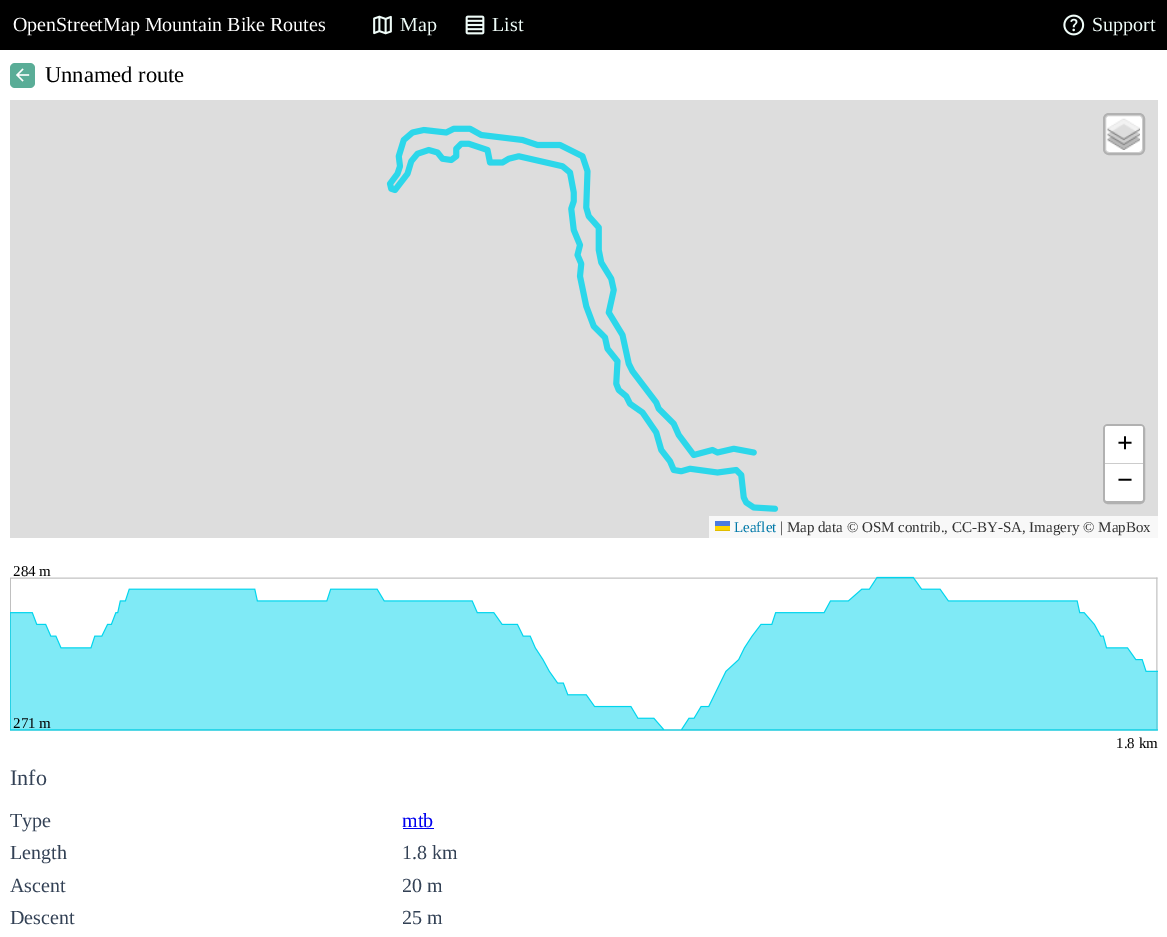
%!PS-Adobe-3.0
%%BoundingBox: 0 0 1167 937
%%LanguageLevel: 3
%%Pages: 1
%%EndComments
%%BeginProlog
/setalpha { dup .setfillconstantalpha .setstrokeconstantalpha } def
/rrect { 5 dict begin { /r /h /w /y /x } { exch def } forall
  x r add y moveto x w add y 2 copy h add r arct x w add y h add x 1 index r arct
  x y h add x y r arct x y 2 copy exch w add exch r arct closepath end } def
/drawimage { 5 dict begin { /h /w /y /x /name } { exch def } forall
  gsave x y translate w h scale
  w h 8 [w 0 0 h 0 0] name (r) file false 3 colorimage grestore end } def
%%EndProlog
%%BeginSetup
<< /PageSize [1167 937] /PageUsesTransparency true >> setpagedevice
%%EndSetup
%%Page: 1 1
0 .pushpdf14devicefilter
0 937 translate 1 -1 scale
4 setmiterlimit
1 setgray
0 0 1167 937 rectfill
0 setgray
0 0 1167 50 rectfill
(images/1.raw) 373 15 19 20 drawimage
(images/2.raw) 465 15 20 20 drawimage
(images/3.raw) 1063 14 22 22 drawimage
0.353 0.678 0.592 setrgbcolor
10 63 25 25 5 rrect fill
(images/4.raw) 16 68 14 14 drawimage
0.867 setgray
10 100 1148 438 rectfill
(images/5.raw) 386 125 393 387 drawimage
1 setgray
1105 115 38 38 4 rrect fill
0.2 setalpha
0 setgray
3 setlinewidth
1104.5 114.5 39 39 4.5 rrect stroke
1 setalpha
(images/6.raw) 1107 118 33 32 drawimage
0.694 setgray
1104.5 425.5 39 77 3.5 rrect stroke
1 setgray
newpath 1107.5 426 moveto 1140.5 426 lineto 1142 426 1143 427 1143 428.5 curveto 1143 464 lineto 1105 464 lineto 1105 428.5 lineto 1105 427 1106 426 1107.5 426 curveto closepath fill
0.8 setgray
1105 463 38 1 rectfill
1 setgray
newpath 1105 464 moveto 1143 464 lineto 1143 498.5 lineto 1143 500 1142 501 1140.5 501 curveto 1107.5 501 lineto 1106 501 1105 500 1105 498.5 curveto closepath fill
0.973 setgray
709 516 449 22 rectfill
0.298 0.482 0.882 setrgbcolor
715 521 15 5 rectfill
1 0.835 0 setrgbcolor
715 526 15 4 rectfill
0.878 0.737 0 setrgbcolor
715 530 15 1 rectfill
(images/7.raw) 10 576 1148 155 drawimage
0 0 0.933 setrgbcolor
403 828 31 1 rectfill
/LiberationSerif-Regular [20 0 0 -20 0 0] selectfont
1 setgray
13 31 moveto (OpenStreetMap Mountain Bike Routes) show
0.937 0.988 0.973 setrgbcolor
400 31 moveto (Map) show
492 31 moveto (List) show
1092 31 moveto (Support) show
/LiberationSerif-Regular [22.5 0 0 -22.5 0 0] selectfont
0 setgray
45 82 moveto (Unnamed route) show
/LiberationSerif-Bold [28 0 0 -28 0 0] selectfont
1117 452 moveto (+) show
1117 489 moveto (−) show
/LiberationSerif-Regular [15 0 0 -15 0 0] selectfont
0 0.471 0.659 setrgbcolor
734 532 moveto (Leaflet) show
0.2 setgray
780 532 moveto (| Map data © OSM contrib., CC-BY-SA, Imagery © MapBox) show
0 setgray
13 576 moveto (284 m) show
13 728 moveto (271 m) show
1116 748 moveto (1.8 km) show
/LiberationSerif-Regular [22 0 0 -22 0 0] selectfont
0.2 0.255 0.333 setrgbcolor
10 785 moveto (Info) show
/LiberationSerif-Regular [20 0 0 -20 0 0] selectfont
10 827 moveto (Type) show
0 0 0.933 setrgbcolor
402 827 moveto (mtb) show
0.2 0.255 0.333 setrgbcolor
10 859 moveto (Length) show
402 859 moveto (1.8 km) show
10 892 moveto (Ascent) show
402 892 moveto (20 m) show
10 924 moveto (Descent) show
402 924 moveto (25 m) show
.poppdf14devicefilter showpage
%%EOF
